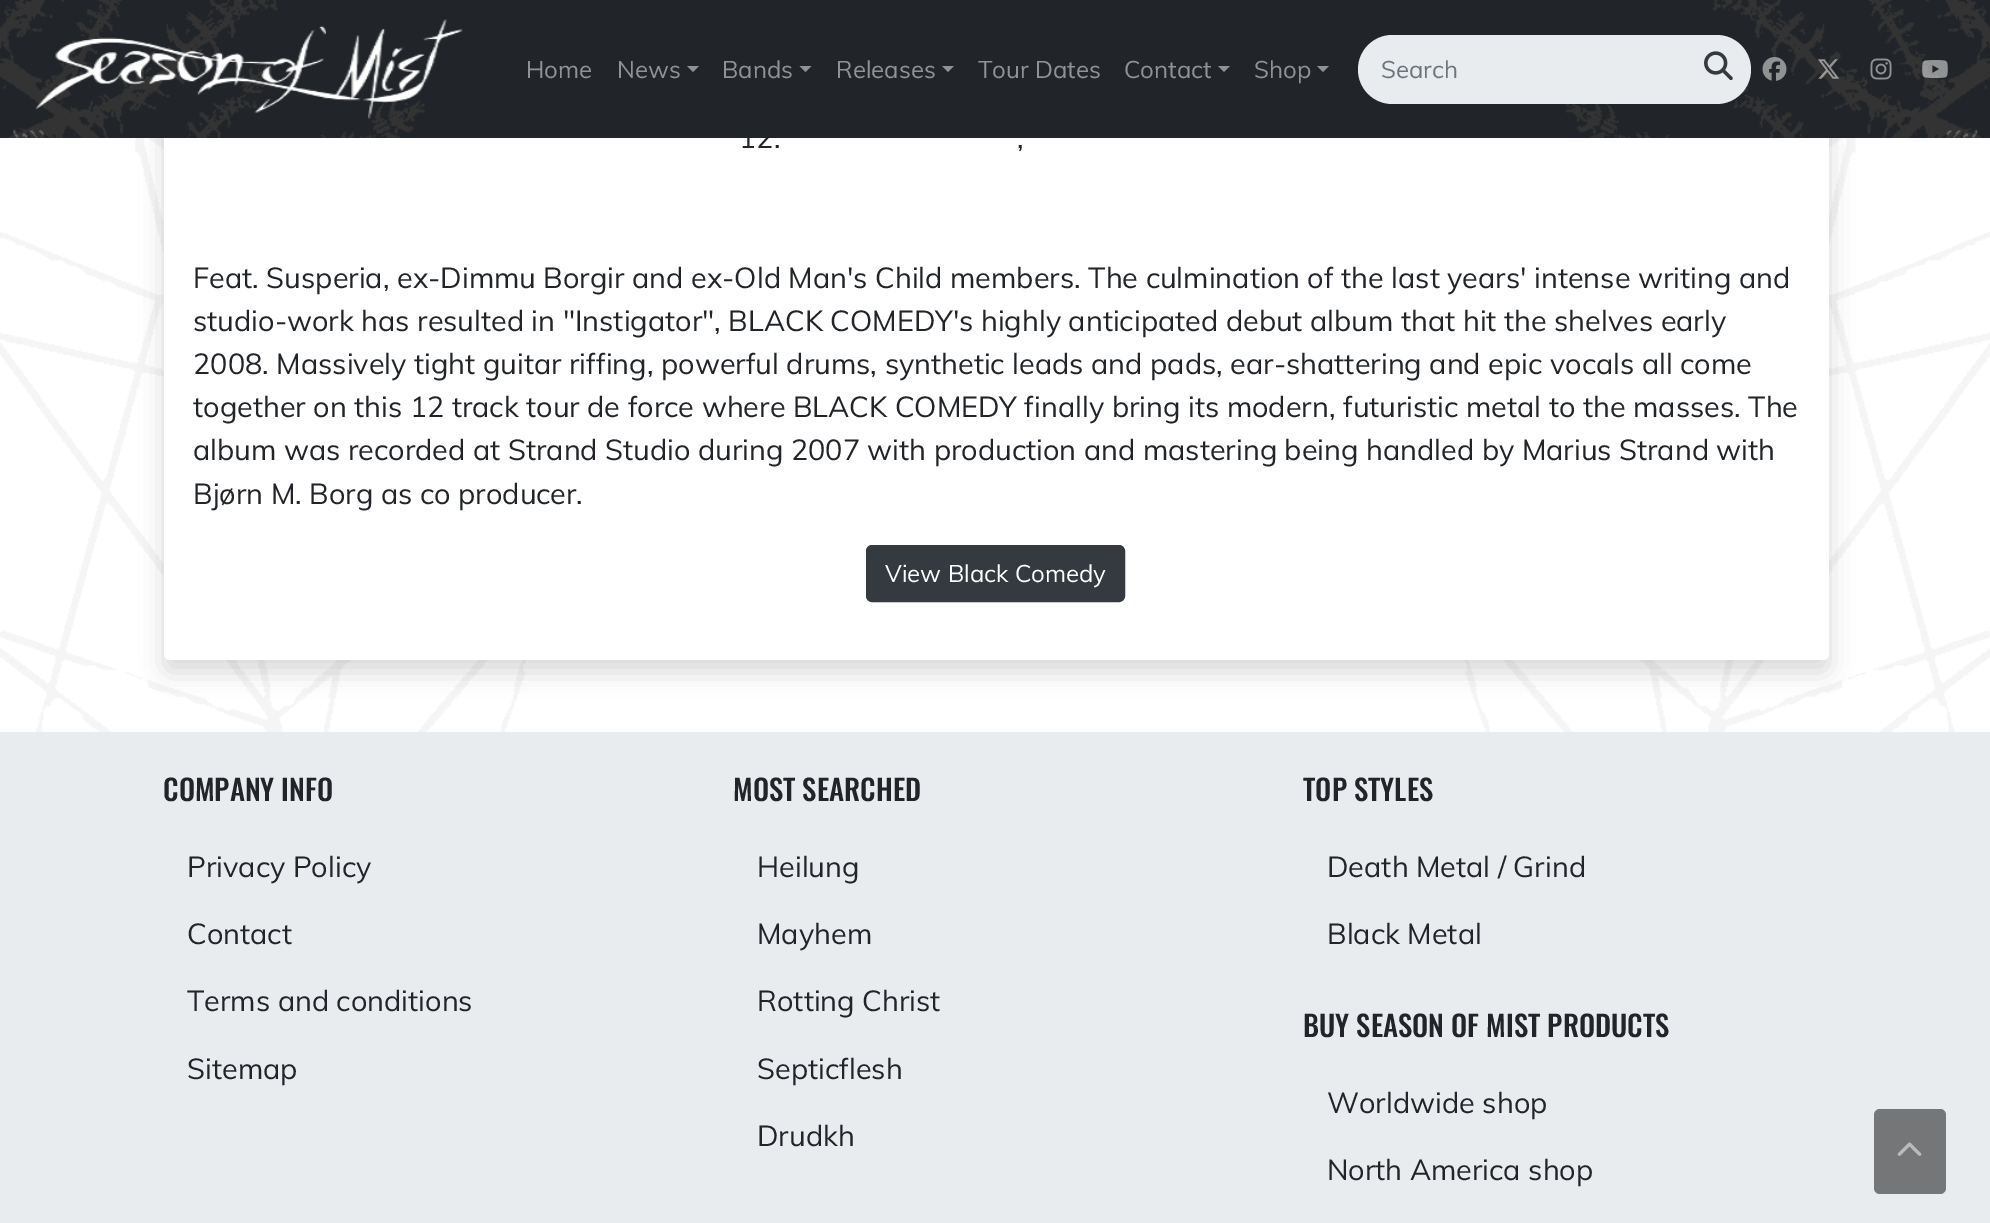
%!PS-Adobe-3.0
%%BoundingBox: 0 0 1990 1223
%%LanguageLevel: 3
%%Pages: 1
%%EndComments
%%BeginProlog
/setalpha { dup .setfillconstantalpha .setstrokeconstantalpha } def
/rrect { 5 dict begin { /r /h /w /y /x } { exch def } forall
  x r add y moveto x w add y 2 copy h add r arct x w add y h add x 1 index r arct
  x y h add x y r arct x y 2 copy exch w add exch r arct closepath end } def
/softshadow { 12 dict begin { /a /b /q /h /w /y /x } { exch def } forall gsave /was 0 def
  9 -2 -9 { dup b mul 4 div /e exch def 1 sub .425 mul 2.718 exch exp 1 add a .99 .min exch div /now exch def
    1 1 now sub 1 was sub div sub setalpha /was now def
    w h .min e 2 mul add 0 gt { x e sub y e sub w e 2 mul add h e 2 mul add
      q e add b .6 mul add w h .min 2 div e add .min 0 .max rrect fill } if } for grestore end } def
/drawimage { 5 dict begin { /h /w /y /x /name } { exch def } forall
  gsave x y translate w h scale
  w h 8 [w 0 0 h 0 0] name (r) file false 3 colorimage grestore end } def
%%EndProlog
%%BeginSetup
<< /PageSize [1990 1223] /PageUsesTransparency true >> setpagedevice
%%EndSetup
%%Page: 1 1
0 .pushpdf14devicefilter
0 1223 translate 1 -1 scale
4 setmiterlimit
1 setgray
0 0 1990 1223 rectfill
(images/8.raw) 0 138 1990 594 drawimage
0 setgray
164 -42 1665 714 6 12 0.15 softshadow
1 setgray
164 -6 1665 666 6 rrect fill
0.129 0.145 0.161 setrgbcolor
0 0 1990 138 rectfill
0.204 0.227 0.251 setrgbcolor
867 546 257 55 5 rrect gsave fill grestore
2 setlinewidth
stroke
0.914 0.925 0.937 setrgbcolor
0 732 1990 491 rectfill
0.459 0.463 0.471 setrgbcolor
1874 1109 72 85 6 rrect fill
(images/9.raw) 1897 1142 25 14 drawimage
/Muli-Regular [28.8 0 0 -28.8 0 0] selectfont
0.129 0.145 0.161 setrgbcolor
739 148 moveto (12.) show
(images/1.raw) 0 0 1990 138 drawimage
0.914 0.925 0.937 setrgbcolor
1358 35 393 69 34.5 rrect fill
/Muli-Regular [24 0 0 -24 0 0] selectfont
0.424 0.459 0.49 setrgbcolor
1381 78 moveto (Search) show
(images/3.raw) 1704 51 29 30 drawimage
0.565 0.573 0.58 setrgbcolor
newpath 1317 66 moveto 1329 66 lineto 1323 72 lineto closepath fill
1254 78 moveto (Shop) show
newpath 1218 66 moveto 1230 66 lineto 1224 72 lineto closepath fill
1124 78 moveto (Contact) show
newpath 942 66 moveto 954 66 lineto 948 72 lineto closepath fill
836 78 moveto (Releases) show
newpath 799.5 66 moveto 811.5 66 lineto 805.5 72 lineto closepath fill
722 78 moveto (Bands) show
newpath 687 66 moveto 699 66 lineto 693 72 lineto closepath fill
617 78 moveto (News) show
(images/7.raw) 1922 60 26 18 drawimage
(images/6.raw) 1870 58 22 22 drawimage
(images/5.raw) 1818 59 22 20 drawimage
(images/4.raw) 1762 57 25 24 drawimage
978 78 moveto (Tour Dates) show
526 78 moveto (Home) show
(images/2.raw) 35 19 428 100 drawimage
/Muli-Regular [28.8 0 0 -28.8 0 0] selectfont
0.129 0.145 0.161 setrgbcolor
1017 148 moveto (,) show
193 288 moveto (Feat. Susperia, ex-Dimmu Borgir and ex-Old Man's Child members. The culmination of the last years' intense writing and) show
193 331 moveto (studio-work has resulted in "Instigator", BLACK COMEDY's highly anticipated debut album that hit the shelves early) show
193 374 moveto (2008. Massively tight guitar riffing, powerful drums, synthetic leads and pads, ear-shattering and epic vocals all come) show
193 417 moveto (together on this 12 track tour de force where BLACK COMEDY finally bring its modern, futuristic metal to the masses. The) show
193 460 moveto (album was recorded at Strand Studio during 2007 with production and mastering being handled by Marius Strand with) show
193 504 moveto (Bjørn M. Borg as co producer.) show
/Muli-Regular [24 0 0 -24 0 0] selectfont
1 setgray
885 582 moveto (View Black Comedy) show
/Oswald-Medium [28.8 0 0 -28.8 0 0] selectfont
0.129 0.145 0.161 setrgbcolor
163 801 moveto (COMPANY INFO) show
/Muli-Regular [28.8 0 0 -28.8 0 0] selectfont
187 877 moveto (Privacy Policy) show
187 944 moveto (Contact) show
187 1011 moveto (Terms and conditions) show
187 1079 moveto (Sitemap) show
/Oswald-Medium [28.8 0 0 -28.8 0 0] selectfont
733 801 moveto (MOST SEARCHED) show
/Muli-Regular [28.8 0 0 -28.8 0 0] selectfont
757 877 moveto (Heilung) show
757 944 moveto (Mayhem) show
757 1011 moveto (Rotting Christ) show
757 1079 moveto (Septicflesh) show
757 1146 moveto (Drudkh) show
/Oswald-Medium [28.8 0 0 -28.8 0 0] selectfont
1303 801 moveto (TOP STYLES) show
/Muli-Regular [28.8 0 0 -28.8 0 0] selectfont
1327 877 moveto (Death Metal / Grind) show
1327 944 moveto (Black Metal) show
/Oswald-Medium [28.8 0 0 -28.8 0 0] selectfont
1303 1037 moveto (BUY SEASON OF MIST PRODUCTS) show
/Muli-Regular [28.8 0 0 -28.8 0 0] selectfont
1327 1113 moveto (Worldwide shop) show
1327 1180 moveto (North America shop) show
.poppdf14devicefilter showpage
%%EOF
